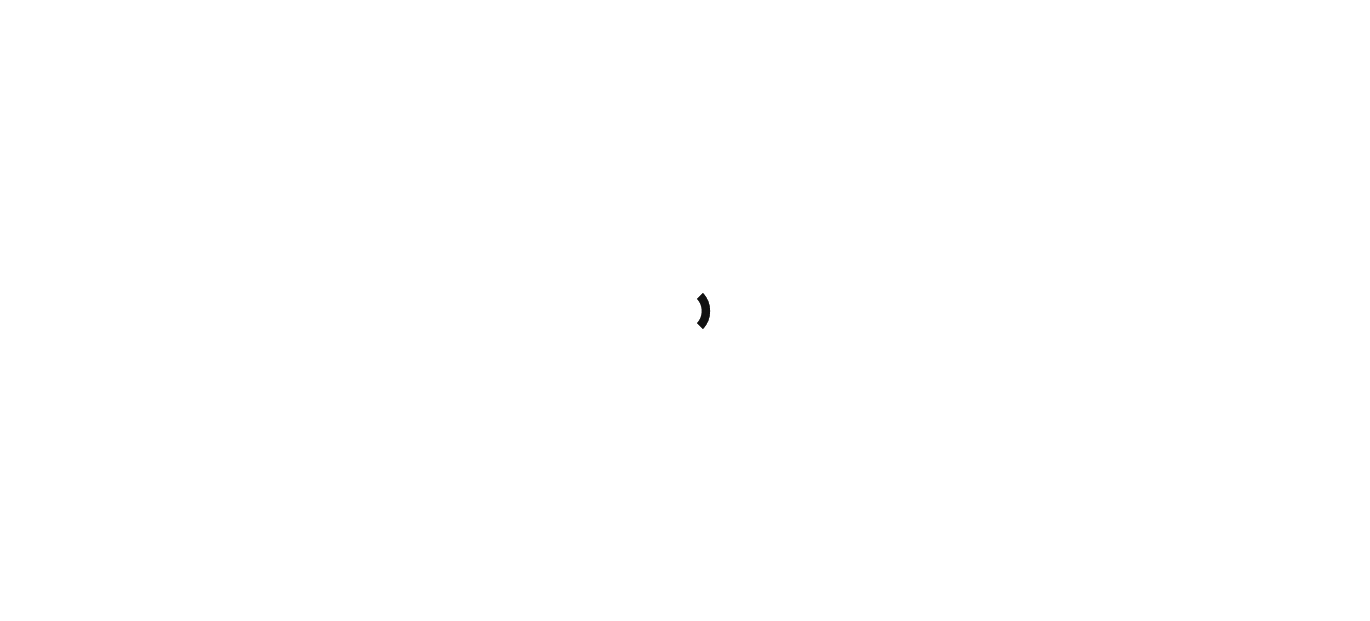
%!PS-Adobe-3.0
%%BoundingBox: 0 0 1370 621
%%LanguageLevel: 3
%%Pages: 1
%%EndComments
%%BeginProlog
/setalpha { dup .setfillconstantalpha .setstrokeconstantalpha } def
%%EndProlog
%%BeginSetup
<< /PageSize [1370 621] /PageUsesTransparency true >> setpagedevice
%%EndSetup
%%Page: 1 1
0 .pushpdf14devicefilter
0 621 translate 1 -1 scale
4 setmiterlimit
1 setgray
0 0 1370 621 rectfill
0.408 setgray
8 setlinewidth
newpath 700 296 moveto 708 304 708 318 700 326 curveto stroke
0.59 setalpha
0 setgray
newpath 700 296 moveto 708 304 708 318 700 326 curveto stroke
newpath 700 296 moveto 708 304 708 318 700 326 curveto stroke
.poppdf14devicefilter showpage
%%EOF
